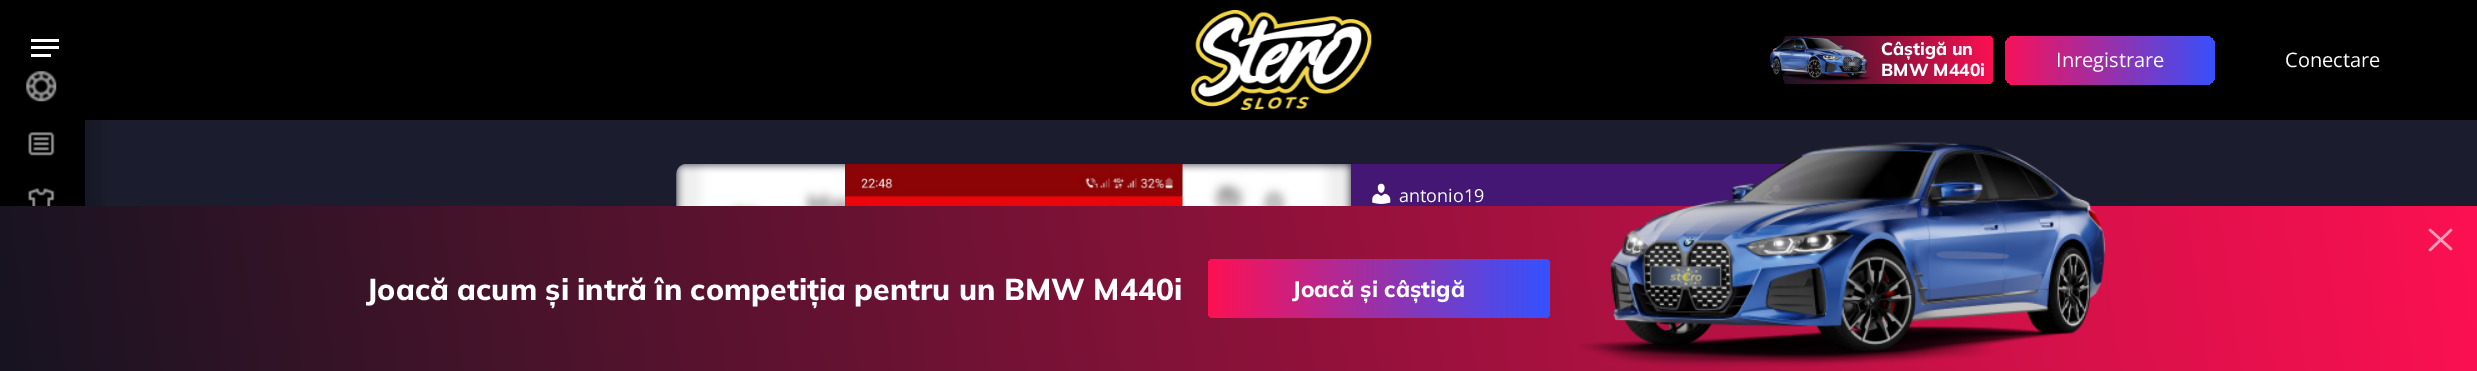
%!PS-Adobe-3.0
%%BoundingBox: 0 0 2477 371
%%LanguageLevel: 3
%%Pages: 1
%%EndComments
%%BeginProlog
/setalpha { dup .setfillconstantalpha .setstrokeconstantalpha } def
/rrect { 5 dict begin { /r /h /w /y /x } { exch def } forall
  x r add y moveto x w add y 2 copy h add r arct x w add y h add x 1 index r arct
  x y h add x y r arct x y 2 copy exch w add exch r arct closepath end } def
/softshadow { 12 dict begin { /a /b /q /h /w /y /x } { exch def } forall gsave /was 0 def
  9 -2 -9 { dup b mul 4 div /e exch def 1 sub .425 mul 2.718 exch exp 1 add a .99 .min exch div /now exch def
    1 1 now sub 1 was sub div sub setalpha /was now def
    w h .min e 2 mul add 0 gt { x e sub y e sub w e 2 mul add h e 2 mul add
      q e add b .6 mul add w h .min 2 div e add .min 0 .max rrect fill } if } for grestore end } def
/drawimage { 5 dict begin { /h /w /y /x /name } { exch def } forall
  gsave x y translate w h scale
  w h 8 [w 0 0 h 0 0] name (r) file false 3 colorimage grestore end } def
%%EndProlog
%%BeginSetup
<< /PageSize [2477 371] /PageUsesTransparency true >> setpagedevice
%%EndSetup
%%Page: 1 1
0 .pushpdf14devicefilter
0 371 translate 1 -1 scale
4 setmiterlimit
0.106 0.11 0.176 setrgbcolor
0 0 2477 371 rectfill
0 setgray
85 0 2392 120 rectfill
8 5 85 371 0 11 0.25 softshadow
0 0 85 206 rectfill
1 setgray
31 39 28 3 rectfill
31 46 28 3 rectfill
31 54 20 3 rectfill
(images/1.raw) 26 71 31 31 drawimage
(images/2.raw) 28 132 27 24 drawimage
(images/3.raw) 28 188 27 18 drawimage
(images/4.raw) 1191 10 181 100 drawimage
gsave 1783 36 210 48 6 rrect clip newpath
<< /ShadingType 2 /ColorSpace /DeviceRGB /Coords [1778 75 1995 45] /Extend [true true] /Function << /FunctionType 2 /Domain [0 1] /C0 [0.078 0.078 0.125] /C1 [1 0.063 0.325] /N 1 >> >> shfill grestore
(images/5.raw) 1770 37 102 45 drawimage
gsave 2005 36 210 49 10 rrect clip newpath
<< /ShadingType 2 /ColorSpace /DeviceRGB /Coords [2005 61 2215 61] /Extend [true true] /Function << /FunctionType 2 /Domain [0 1] /C0 [0.965 0.071 0.353] /C1 [0.22 0.314 0.984] /N 1 >> >> shfill grestore
(images/6.raw) 676 164 675 42 drawimage
(images/7.raw) 845 164 338 42 drawimage
0.271 0.09 0.459 setrgbcolor
newpath 1351 164 moveto 1791 164 lineto 1796.5 164 1801 168.5 1801 174 curveto 1801 371 lineto 1801 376.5 1796.5 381 1791 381 curveto 1351 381 lineto closepath fill
(images/8.raw) 1372 183 19 21 drawimage
(images/9.raw) 1763 185 18 14 drawimage
gsave newpath 0 206 moveto 2477 206 lineto 2477 371 lineto 0 371 lineto closepath clip newpath
<< /ShadingType 2 /ColorSpace /DeviceRGB /Coords [-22 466 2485 114] /Extend [true true] /Function << /FunctionType 2 /Domain [0 1] /C0 [0.078 0.078 0.125] /C1 [1 0.063 0.325] /N 1 >> >> shfill grestore
0.992 0.624 0.729 setrgbcolor
2.5 setlinewidth
1 setlinecap
1 setlinejoin
newpath 2430 230 moveto 2451 249 lineto 2430 250 moveto 2451 230 lineto stroke
gsave 1208 259 342 59 6 rrect clip newpath
<< /ShadingType 2 /ColorSpace /DeviceRGB /Coords [1208 288 1550 288] /Extend [true true] /Function << /FunctionType 2 /Domain [0 1] /C0 [1 0.063 0.325] /C1 [0.204 0.322 1] /N 1 >> >> shfill grestore
(images/10.raw) 1579 142 527 225 drawimage
/Mulish-ExtraBold [17.5 0 0 -17.5 0 0] selectfont
1 setgray
1881 55 moveto (Câștigă un) show
1881 76 moveto (BMW M440i) show
/OpenSans-Regular [20 0 0 -20 0 0] selectfont
2056 67 moveto (Inregistrare) show
2285 67 moveto (Conectare) show
/OpenSans-Regular [18 0 0 -18 0 0] selectfont
1399 202 moveto (antonio19) show
/Mulish-ExtraBold [30 0 0 -30 0 0] selectfont
366 300 moveto (Joacă acum și intră în competiția pentru un BMW M440i) show
/Mulish-ExtraBold [22.5 0 0 -22.5 0 0] selectfont
1292 297 moveto (Joacă și câștigă) show
.poppdf14devicefilter showpage
%%EOF
